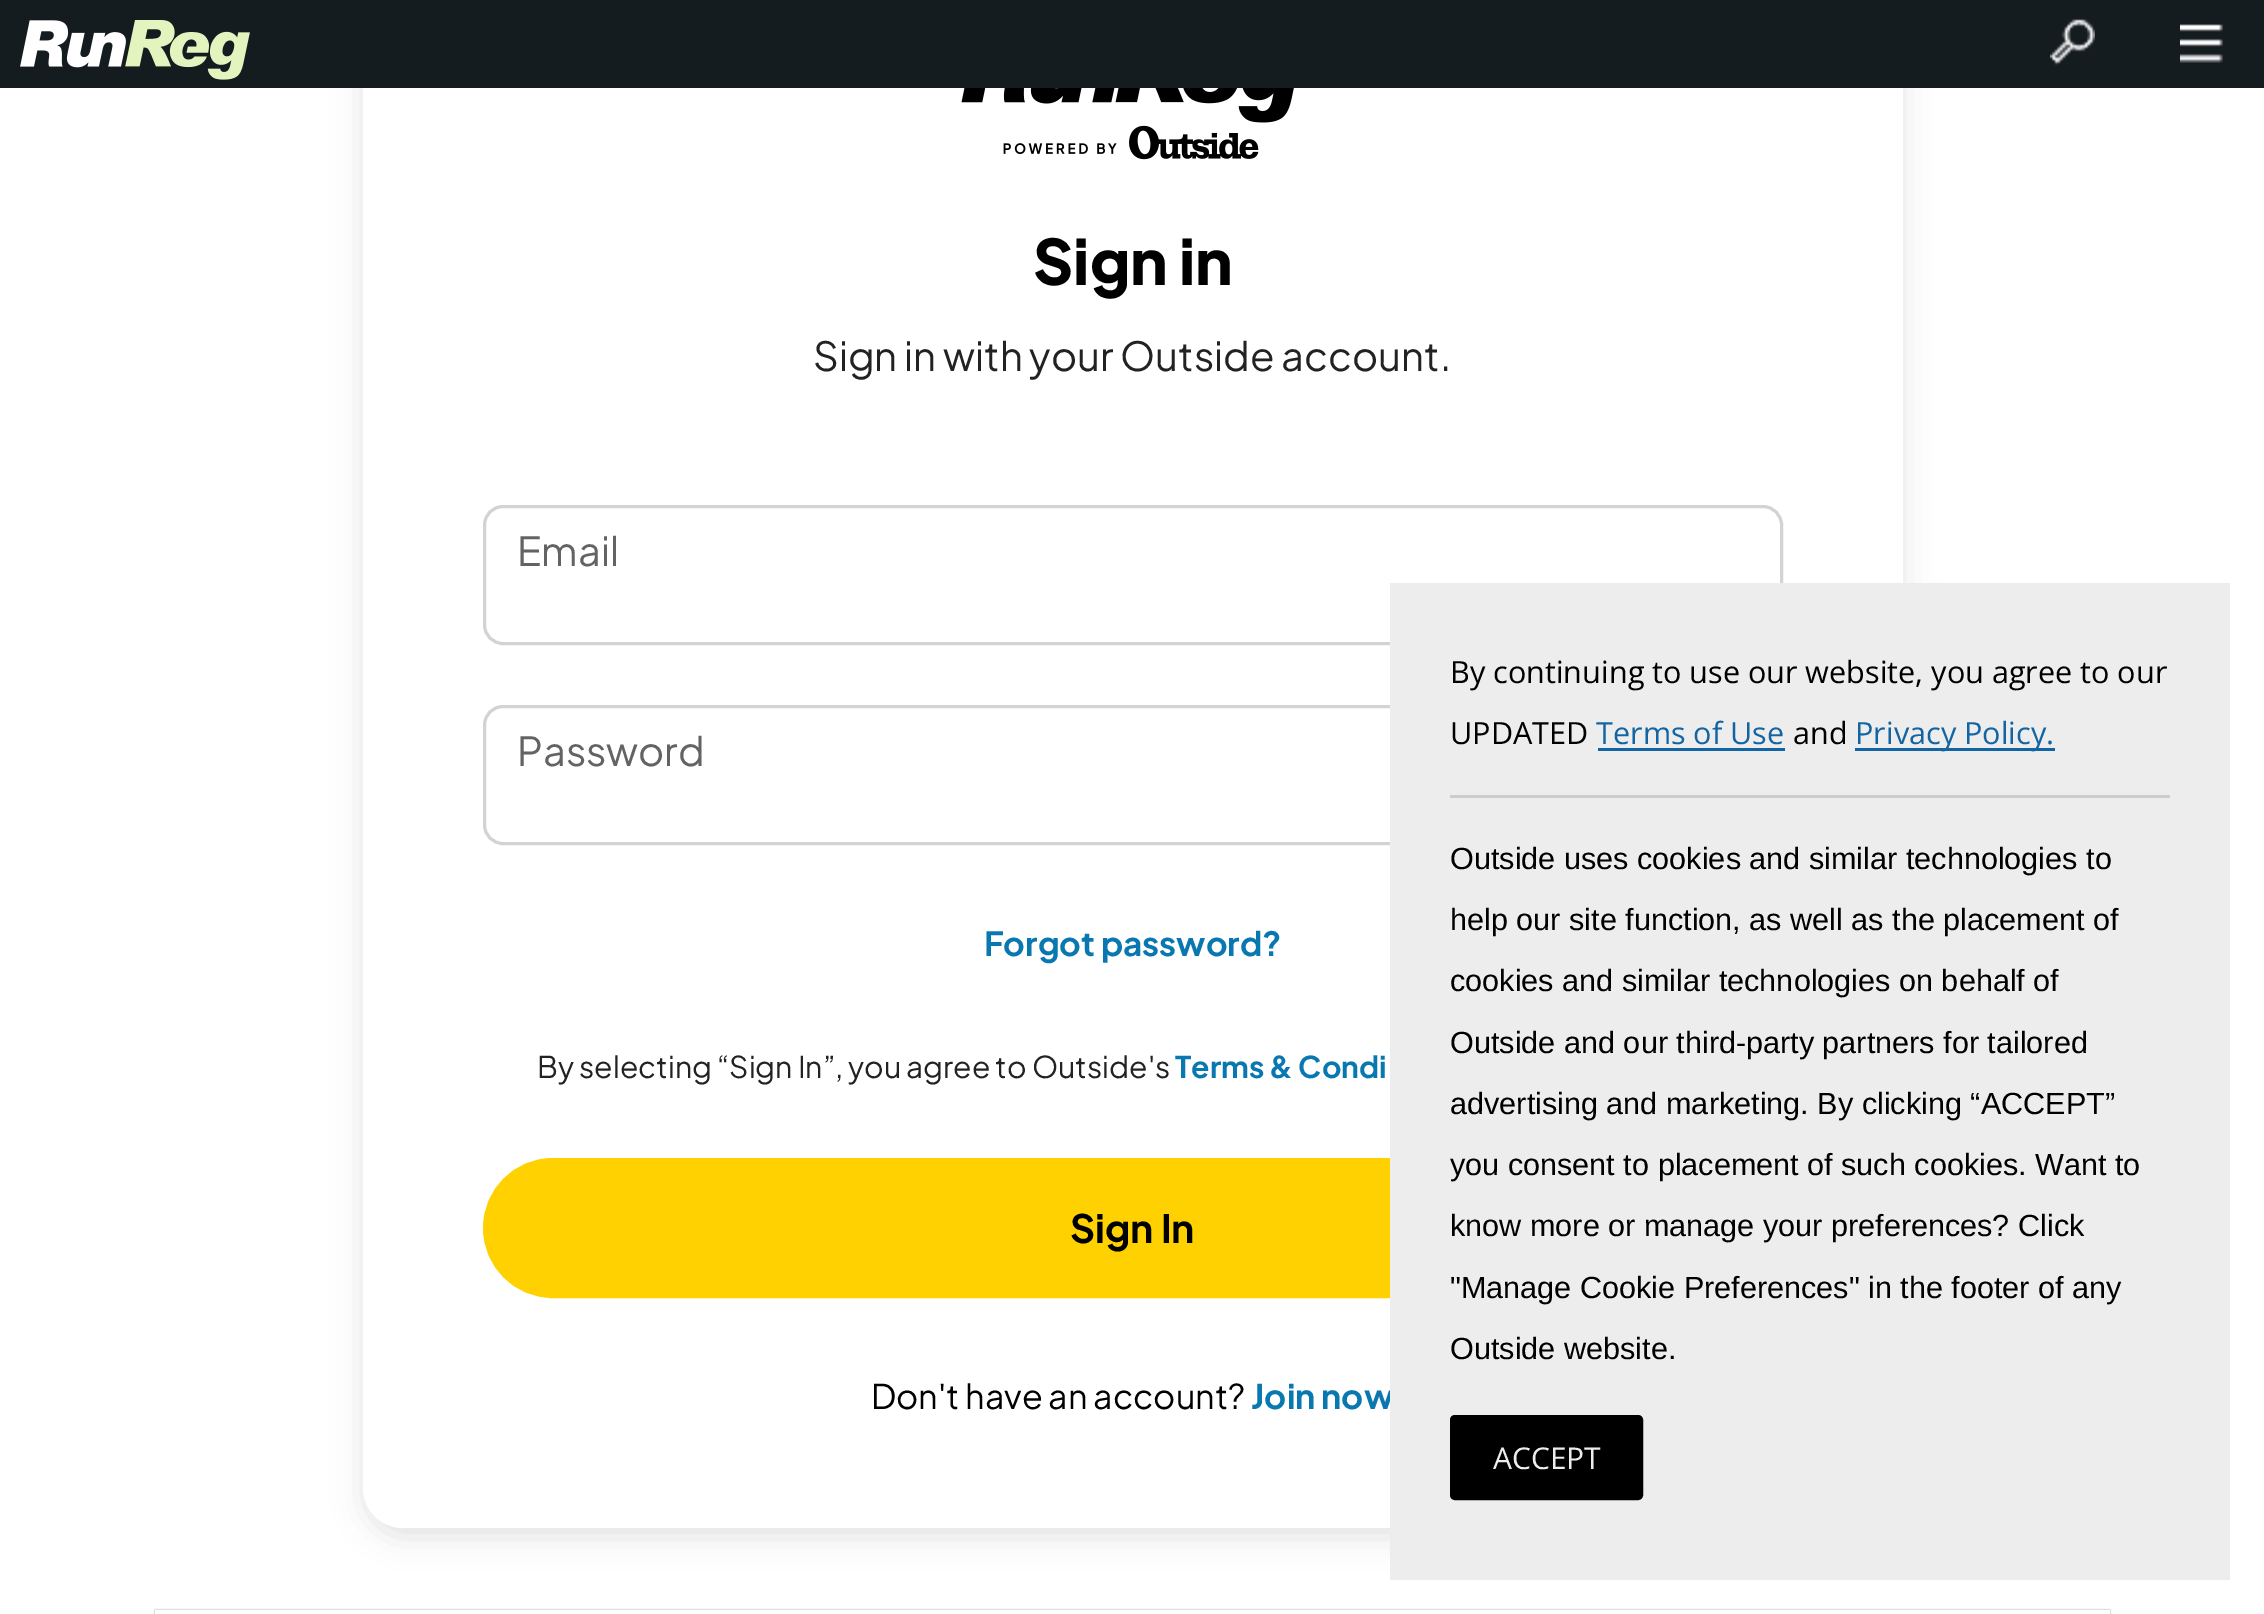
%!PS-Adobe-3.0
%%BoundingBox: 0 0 2264 1614
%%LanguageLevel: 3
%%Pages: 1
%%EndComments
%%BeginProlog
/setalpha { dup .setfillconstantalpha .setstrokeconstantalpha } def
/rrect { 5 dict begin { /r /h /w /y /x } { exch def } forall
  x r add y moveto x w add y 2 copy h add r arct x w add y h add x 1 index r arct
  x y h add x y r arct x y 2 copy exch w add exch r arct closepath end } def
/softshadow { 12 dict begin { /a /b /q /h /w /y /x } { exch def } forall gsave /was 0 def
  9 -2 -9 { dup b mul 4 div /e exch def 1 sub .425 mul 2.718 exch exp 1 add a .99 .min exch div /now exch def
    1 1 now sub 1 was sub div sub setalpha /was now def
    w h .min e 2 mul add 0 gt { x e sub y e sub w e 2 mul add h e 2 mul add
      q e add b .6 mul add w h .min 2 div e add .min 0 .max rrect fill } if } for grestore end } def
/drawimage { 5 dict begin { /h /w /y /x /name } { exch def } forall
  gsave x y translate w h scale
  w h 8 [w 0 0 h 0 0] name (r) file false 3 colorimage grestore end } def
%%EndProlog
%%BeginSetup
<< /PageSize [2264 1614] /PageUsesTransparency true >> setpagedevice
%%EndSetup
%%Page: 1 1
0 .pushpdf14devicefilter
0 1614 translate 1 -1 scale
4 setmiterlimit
1 setgray
0 0 2264 1614 rectfill
0.333 setgray
363 -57 1540 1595 40 15 0.16 softshadow
1 setgray
363 -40 1540 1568 40 rrect fill
0.082 0.11 0.125 setrgbcolor
0 0 2264 88 rectfill
(images/1.raw) 20 20 230 60 drawimage
(images/2.raw) 2050 19 45 47 drawimage
(images/3.raw) 2180 24 43 39 drawimage
(images/4.raw) 961 88 333 72 drawimage
0.827 setgray
3 setlinewidth
484.5 506.5 1297 137 18.5 rrect stroke
484.5 706.5 1297 137 18.5 rrect stroke
1 0.82 0 setrgbcolor
485.5 1160.5 1295 135 67.5 rrect gsave fill grestore
5 setlinewidth
stroke
gsave
newpath 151 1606 moveto 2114 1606 lineto 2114 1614 lineto 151 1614 lineto closepath 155 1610 moveto 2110 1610 lineto 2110 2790 lineto 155 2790 lineto closepath eoclip newpath
0 setgray
155 1610 1955 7 0 1 0.4 softshadow
grestore
/PlusJakartaSans-ExtraBold [62.5 0 0 -62.5 0 0] selectfont
0 setgray
1033 285 moveto (Sign in) show
/PlusJakartaSans-Regular [40 0 0 -40 0 0] selectfont
0.133 setgray
813 371 moveto (Sign in with your Outside account.) show
0.388 setgray
517 566 moveto (Email) show
517 766 moveto (Password) show
/PlusJakartaSans-Bold [33.25 0 0 -33.25 0 0] selectfont
0.035 0.471 0.694 setrgbcolor
984 956 moveto (Forgot password?) show
/PlusJakartaSans-Regular [30 0 0 -30 0 0] selectfont
0.133 setgray
537 1078 moveto (By selecting “Sign In”, you agree to Outside's) show
/PlusJakartaSans-Bold [30 0 0 -30 0 0] selectfont
0.035 0.471 0.694 setrgbcolor
1175 1078 moveto (Terms & Condi) show
/PlusJakartaSans-Bold [39 0 0 -39 0 0] selectfont
0 setgray
1070 1243 moveto (Sign In) show
/PlusJakartaSans-Regular [34 0 0 -34 0 0] selectfont
871 1409 moveto (Don't have an account?) show
/PlusJakartaSans-Bold [34 0 0 -34 0 0] selectfont
0.035 0.471 0.694 setrgbcolor
1251 1409 moveto (Join now) show
0.929 setgray
1390 583 840 997 rectfill
/OpenSans-Regular [30.6 0 0 -30.6 0 0] selectfont
0 setgray
1450 683 moveto (By continuing to use our website, you agree to our) show
1450 744 moveto (UPDATED) show
0.071 0.392 0.639 setrgbcolor
1596 744 moveto (Terms of Use) show
1598 748 187 3 rectfill
0 setgray
1793 744 moveto (and) show
0.071 0.392 0.639 setrgbcolor
1855 748 200 3 rectfill
1855 744 moveto (Privacy Policy.) show
0.8 setgray
1450 795 720 3 rectfill
/LiberationSans-Regular [30.6 0 0 -30.6 0 0] selectfont
0 setgray
1450 869 moveto (Outside uses cookies and similar technologies to) show
1450 930 moveto (help our site function, as well as the placement of) show
1450 991 moveto (cookies and similar technologies on behalf of) show
1450 1053 moveto (Outside and our third-party partners for tailored) show
1450 1114 moveto (advertising and marketing. By clicking “ACCEPT”) show
1450 1175 moveto (you consent to placement of such cookies. Want to) show
1450 1236 moveto (know more or manage your preferences? Click) show
1450 1298 moveto ("Manage Cookie Preferences" in the footer of any) show
1450 1359 moveto (Outside website.) show
1451.5 1416.5 190 82 3.5 rrect gsave fill grestore
3 setlinewidth
stroke
/OpenSans-Regular [30 0 0 -30 0 0] selectfont
0.929 setgray
1493 1469 moveto (ACCEPT) show
.poppdf14devicefilter showpage
%%EOF
